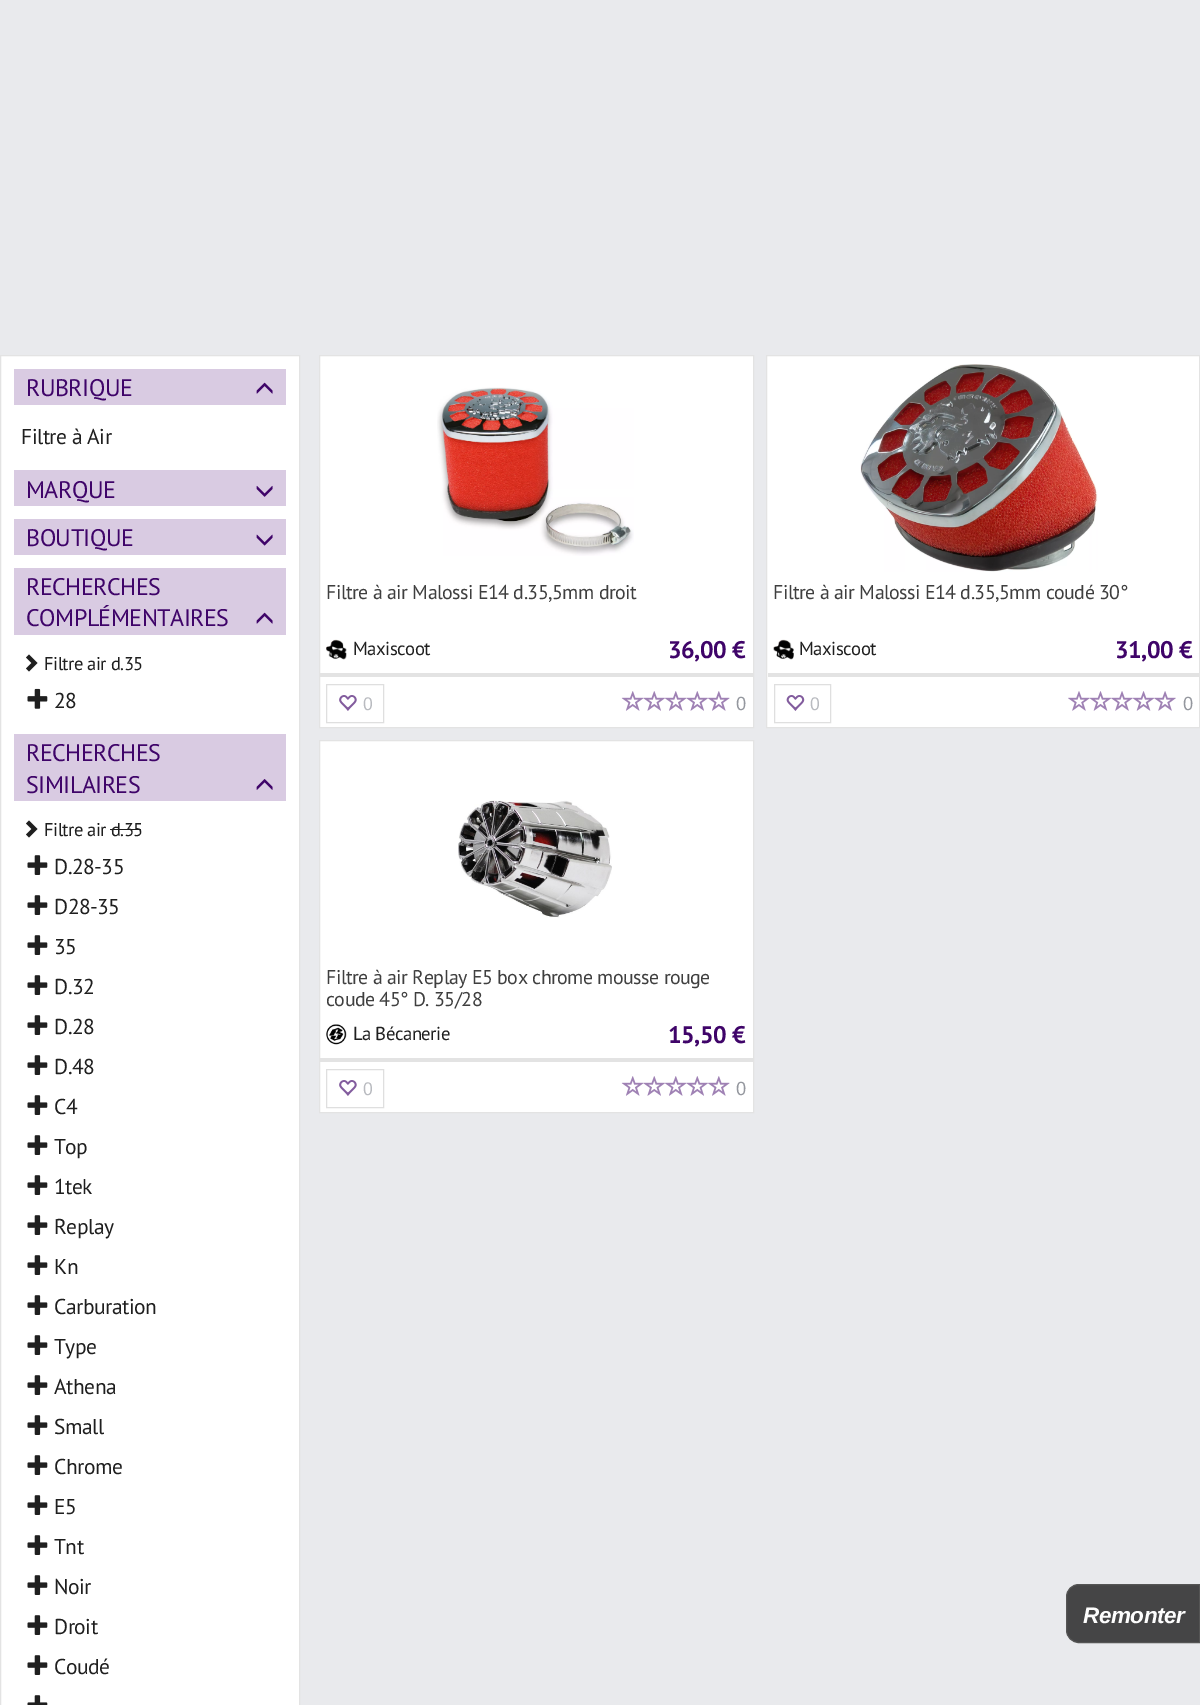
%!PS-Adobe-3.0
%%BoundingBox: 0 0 1200 1705
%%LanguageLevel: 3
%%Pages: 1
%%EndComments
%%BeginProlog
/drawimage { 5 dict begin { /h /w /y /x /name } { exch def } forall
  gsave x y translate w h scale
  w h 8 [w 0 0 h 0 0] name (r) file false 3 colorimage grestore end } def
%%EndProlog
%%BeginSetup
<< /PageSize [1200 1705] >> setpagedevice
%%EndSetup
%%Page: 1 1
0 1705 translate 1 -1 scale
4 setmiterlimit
0.914 0.918 0.929 setrgbcolor
0 0 1200 1705 rectfill
1 setgray
newpath 0.5 355.5 moveto 299.5 355.5 lineto 299.5 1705.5 lineto 0.5 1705.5 lineto closepath gsave fill grestore
0.89 setgray
stroke
0.851 0.796 0.886 setrgbcolor
14 369 272 36 rectfill
(images/1.raw) 256 382 17 12 drawimage
14 470 272 36 rectfill
(images/2.raw) 256 485 17 12 drawimage
14 519 272 36 rectfill
(images/3.raw) 256 534 17 12 drawimage
14 568 272 67 rectfill
(images/1.raw) 256 612 17 12 drawimage
0.122 setgray
newpath 37.5 663 moveto 29 671.5 lineto 26 668.5 lineto 31.5 663 lineto 26 657.5 lineto 29 654.5 lineto closepath fill
(images/4.raw) 27 688 21 21 drawimage
0.851 0.796 0.886 setrgbcolor
14 734 272 67 rectfill
(images/5.raw) 256 779 17 11 drawimage
0.122 setgray
newpath 37.5 829 moveto 29 837.5 lineto 26 834.5 lineto 31.5 829 lineto 26 823.5 lineto 29 820.5 lineto closepath fill
110 829 31 1 rectfill
(images/6.raw) 27 855 21 20 drawimage
(images/6.raw) 27 895 21 20 drawimage
(images/6.raw) 27 935 21 20 drawimage
(images/6.raw) 27 975 21 20 drawimage
(images/6.raw) 27 1015 21 20 drawimage
(images/6.raw) 27 1055 21 20 drawimage
(images/6.raw) 27 1095 21 20 drawimage
(images/6.raw) 27 1135 21 20 drawimage
(images/6.raw) 27 1175 21 20 drawimage
(images/6.raw) 27 1215 21 20 drawimage
(images/6.raw) 27 1255 21 20 drawimage
(images/6.raw) 27 1295 21 20 drawimage
(images/6.raw) 27 1335 21 20 drawimage
(images/6.raw) 27 1375 21 20 drawimage
(images/6.raw) 27 1415 21 20 drawimage
(images/6.raw) 27 1455 21 20 drawimage
(images/6.raw) 27 1495 21 20 drawimage
(images/6.raw) 27 1535 21 20 drawimage
(images/6.raw) 27 1575 21 20 drawimage
(images/6.raw) 27 1615 21 20 drawimage
(images/6.raw) 27 1655 21 20 drawimage
(images/7.raw) 27 1695 21 10 drawimage
1 setgray
newpath 319.5 355.5 moveto 753.5 355.5 lineto 753.5 727.5 lineto 319.5 727.5 lineto closepath gsave fill grestore
0.89 setgray
stroke
(images/8.raw) 437 387 197 169 drawimage
(images/9.raw) 326 639 21 21 drawimage
320 673 433 4 rectfill
0.875 setgray
326.5 684.5 57 38 rectstroke
(images/10.raw) 339 695 18 16 drawimage
(images/11.raw) 621 691 109 20 drawimage
1 setgray
newpath 766.5 355.5 moveto 1199.5 355.5 lineto 1199.5 727.5 lineto 766.5 727.5 lineto closepath gsave fill grestore
0.89 setgray
stroke
(images/12.raw) 860 364 238 208 drawimage
(images/13.raw) 773 639 21 21 drawimage
768 673 431 4 rectfill
0.875 setgray
774.5 684.5 56 38 rectstroke
(images/14.raw) 786 695 19 16 drawimage
(images/15.raw) 1068 691 108 20 drawimage
1 setgray
newpath 319.5 740.5 moveto 753.5 740.5 lineto 753.5 1112.5 lineto 319.5 1112.5 lineto closepath gsave fill grestore
0.89 setgray
stroke
(images/16.raw) 458 800 154 118 drawimage
(images/17.raw) 326 1024 21 21 drawimage
320 1058 433 4 rectfill
0.875 setgray
326.5 1069.5 57 38 rectstroke
(images/10.raw) 339 1080 18 16 drawimage
(images/11.raw) 621 1076 109 20 drawimage
0.271 0.271 0.275 setrgbcolor
newpath 1079 1584.5 moveto 1199.5 1584.5 lineto 1199.5 1642.5 lineto 1079 1642.5 lineto 1072 1642.5 1066.5 1637 1066.5 1630 curveto 1066.5 1597 lineto 1066.5 1590 1072 1584.5 1079 1584.5 curveto closepath gsave fill grestore
0.333 setgray
stroke
/PTSans-Regular [24 0 0 -24 0 0] selectfont
0.247 0.016 0.412 setrgbcolor
26 396 moveto -0.5 0 (RUBRIQUE) ashow
/PTSans-Regular [21.5 0 0 -21.5 0 0] selectfont
0.122 setgray
21 444 moveto -0.5 0 (Filtre à Air) ashow
/PTSans-Regular [24 0 0 -24 0 0] selectfont
0.247 0.016 0.412 setrgbcolor
26 498 moveto -0.5 0 (MARQUE) ashow
26 546 moveto -0.5 0 (BOUTIQUE) ashow
26 595 moveto -0.5 0 (RECHERCHES) ashow
26 626 moveto -0.5 0 (COMPLÉMENTAIRES) ashow
/PTSans-Regular [18.5 0 0 -18.5 0 0] selectfont
0.122 setgray
44 670 moveto -0.5 0 (Filtre air d.35) ashow
/PTSans-Regular [21.5 0 0 -21.5 0 0] selectfont
54 708 moveto -0.5 0 (28) ashow
/PTSans-Regular [24 0 0 -24 0 0] selectfont
0.247 0.016 0.412 setrgbcolor
26 761 moveto -0.5 0 (RECHERCHES) ashow
26 793 moveto -0.5 0 (SIMILAIRES) ashow
/PTSans-Regular [18.5 0 0 -18.5 0 0] selectfont
0.122 setgray
44 836 moveto -0.5 0 (Filtre air d.35) ashow
/PTSans-Regular [21.5 0 0 -21.5 0 0] selectfont
54 874 moveto -0.5 0 (D.28-35) ashow
54 914 moveto -0.5 0 (D28-35) ashow
54 954 moveto -0.5 0 (35) ashow
54 994 moveto -0.5 0 (D.32) ashow
54 1034 moveto -0.5 0 (D.28) ashow
54 1074 moveto -0.5 0 (D.48) ashow
54 1114 moveto -0.5 0 (C4) ashow
54 1154 moveto -0.5 0 (Top) ashow
54 1194 moveto -0.5 0 (1tek) ashow
54 1234 moveto -0.5 0 (Replay) ashow
54 1274 moveto -0.5 0 (Kn) ashow
54 1314 moveto -0.5 0 (Carburation) ashow
54 1354 moveto -0.5 0 (Type) ashow
54 1394 moveto -0.5 0 (Athena) ashow
54 1434 moveto -0.5 0 (Small) ashow
54 1474 moveto -0.5 0 (Chrome) ashow
54 1514 moveto -0.5 0 (E5) ashow
54 1554 moveto -0.5 0 (Tnt) ashow
54 1594 moveto -0.5 0 (Noir) ashow
54 1634 moveto -0.5 0 (Droit) ashow
54 1674 moveto -0.5 0 (Coudé) ashow
/PTSans-Regular [19.9 0 0 -19.9 0 0] selectfont
0.247 setgray
326 599 moveto -0.5 0 (Filtre à air Malossi E14 d.35,5mm droit) ashow
/PTSans-Regular [18.75 0 0 -18.75 0 0] selectfont
0.122 setgray
353 655 moveto -0.5 0 (Maxiscoot) ashow
/PTSans-Bold [24 0 0 -24 0 0] selectfont
0.247 0.016 0.412 setrgbcolor
668 658 moveto -0.5 0 (36,00 €) ashow
/PTSans-Regular [18 0 0 -18 0 0] selectfont
0.725 0.733 0.753 setrgbcolor
363 710 moveto (0) show
/PTSans-Regular [18.75 0 0 -18.75 0 0] selectfont
0.58 0.592 0.62 setrgbcolor
736 710 moveto -0.5 0 (0) ashow
/PTSans-Regular [19.9 0 0 -19.9 0 0] selectfont
0.247 setgray
773 599 moveto -0.5 0 (Filtre à air Malossi E14 d.35,5mm coudé 30°) ashow
/PTSans-Regular [18.75 0 0 -18.75 0 0] selectfont
0.122 setgray
799 655 moveto -0.5 0 (Maxiscoot) ashow
/PTSans-Bold [24 0 0 -24 0 0] selectfont
0.247 0.016 0.412 setrgbcolor
1115 658 moveto -0.5 0 (31,00 €) ashow
/PTSans-Regular [18 0 0 -18 0 0] selectfont
0.725 0.733 0.753 setrgbcolor
810 710 moveto (0) show
/PTSans-Regular [18.75 0 0 -18.75 0 0] selectfont
0.58 0.592 0.62 setrgbcolor
1183 710 moveto -0.5 0 (0) ashow
/PTSans-Regular [19.9 0 0 -19.9 0 0] selectfont
0.247 setgray
326 984 moveto -0.5 0 (Filtre à air Replay E5 box chrome mousse rouge) ashow
326 1006 moveto -0.5 0 (coude 45° D. 35/28) ashow
/PTSans-Regular [18.75 0 0 -18.75 0 0] selectfont
0.122 setgray
353 1040 moveto -0.5 0 (La Bécanerie) ashow
/PTSans-Bold [24 0 0 -24 0 0] selectfont
0.247 0.016 0.412 setrgbcolor
668 1043 moveto -0.5 0 (15,50 €) ashow
/PTSans-Regular [18 0 0 -18 0 0] selectfont
0.725 0.733 0.753 setrgbcolor
363 1095 moveto (0) show
/PTSans-Regular [18.75 0 0 -18.75 0 0] selectfont
0.58 0.592 0.62 setrgbcolor
736 1095 moveto -0.5 0 (0) ashow
/LiberationSans-BoldItalic [22.5 0 0 -22.5 0 0] selectfont
0.992 setgray
1083 1623 moveto -0.5 0 (Remonter) ashow
showpage
%%EOF
